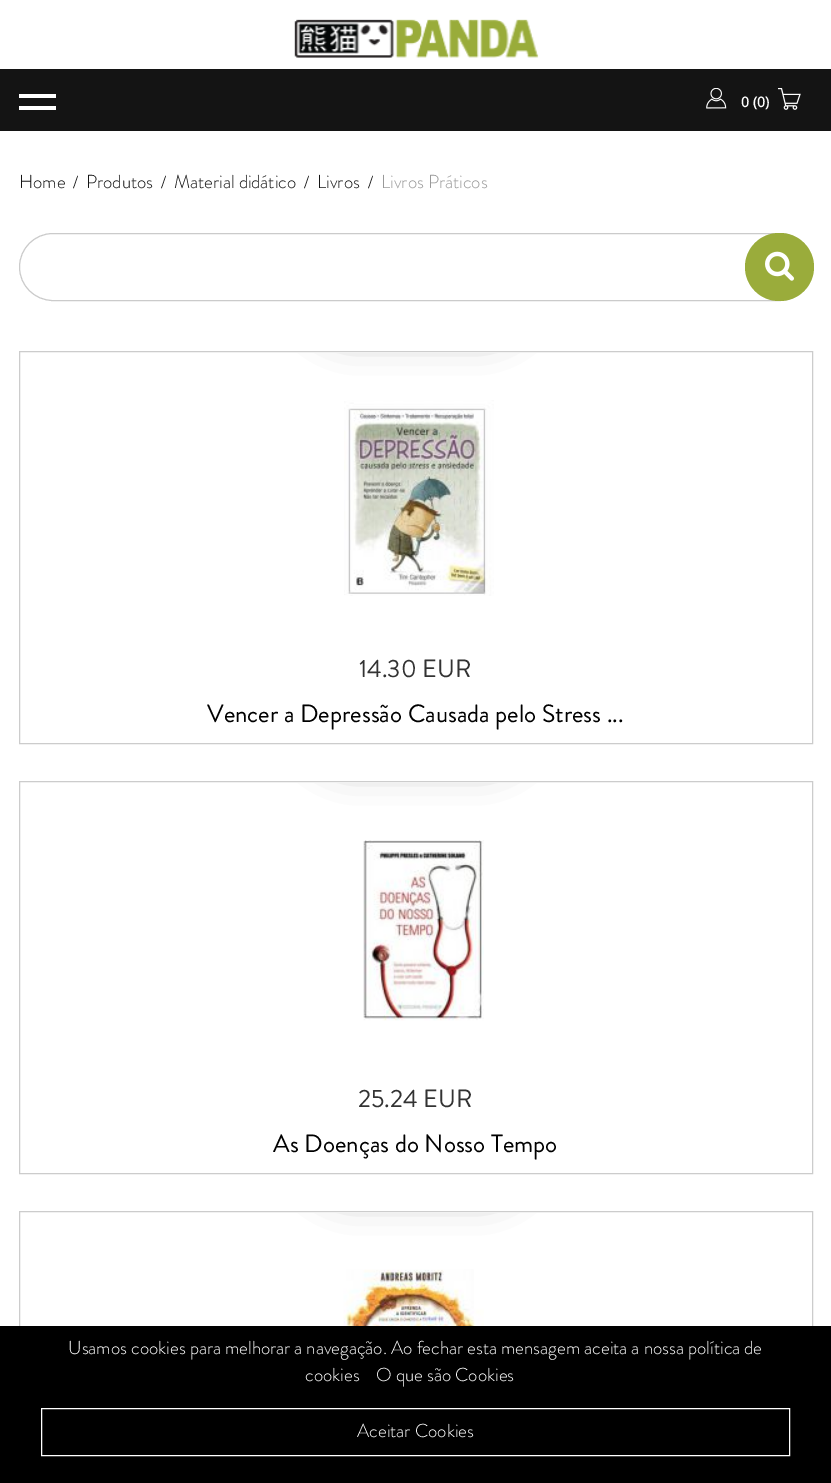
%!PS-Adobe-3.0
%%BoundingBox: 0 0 831 1483
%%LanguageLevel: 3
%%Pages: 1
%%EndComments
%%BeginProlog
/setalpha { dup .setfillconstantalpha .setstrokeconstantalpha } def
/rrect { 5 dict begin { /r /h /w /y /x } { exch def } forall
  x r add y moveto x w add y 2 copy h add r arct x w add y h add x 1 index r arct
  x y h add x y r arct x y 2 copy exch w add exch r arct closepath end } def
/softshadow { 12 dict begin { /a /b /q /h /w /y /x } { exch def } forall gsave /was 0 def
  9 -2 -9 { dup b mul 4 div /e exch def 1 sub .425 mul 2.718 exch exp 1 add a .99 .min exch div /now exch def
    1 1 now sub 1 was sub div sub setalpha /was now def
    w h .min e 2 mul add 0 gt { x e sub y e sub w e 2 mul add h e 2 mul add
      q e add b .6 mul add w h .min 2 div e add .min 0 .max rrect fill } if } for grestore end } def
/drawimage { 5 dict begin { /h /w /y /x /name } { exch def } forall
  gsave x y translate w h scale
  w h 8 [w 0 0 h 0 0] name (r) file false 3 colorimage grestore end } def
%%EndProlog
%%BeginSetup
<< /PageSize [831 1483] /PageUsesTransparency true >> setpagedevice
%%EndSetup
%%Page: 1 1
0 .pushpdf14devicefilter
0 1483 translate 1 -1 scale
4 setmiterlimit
1 setgray
0 0 831 1483 rectfill
(images/1.raw) 294 19 245 39 drawimage
0.078 setgray
0 69 831 62 rectfill
1 setgray
19 94 37 4 rectfill
19 106 37 4 rectfill
(images/2.raw) 706 88 21 21 drawimage
(images/3.raw) 778 88 23 22 drawimage
0.796 setgray
19.5 233.5 793 67 33.5 rrect stroke
0.604 0.675 0.231 setrgbcolor
745 233 69 68 34 rrect fill
(images/4.raw) 765 251 29 30 drawimage
0.8 setgray
19.5 351.5 793 392 rectstroke
gsave
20 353 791 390 rectclip
0 setgray
303 216 228 117 58.5 19 0.36 softshadow
grestore
(images/5.raw) 344 400 150 196 drawimage
19.5 1211.5 793 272 rectstroke
19.5 781.5 793 392 rectstroke
(images/7.raw) 363 840 121 181 drawimage
gsave
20 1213 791 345 rectclip
0 setgray
303 1076 228 117 58.5 19 0.36 softshadow
grestore
(images/6.raw) 343 1269 141 57 drawimage
gsave
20 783 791 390 rectclip
0 setgray
303 646 228 117 58.5 19 0.36 softshadow
grestore
0 setgray
0 1326 831 157 rectfill
1 setgray
41.5 1408.5 748 47 rectstroke
/OpenSans-Bold [14 0 0 -14 0 0] selectfont
741 107 moveto (0 \(0\)) show
/BrandonGrotesque-Light [18.75 0 0 -18.75 0 0] selectfont
0.078 setgray
19 188 moveto (Home) show
/LiberationSerif-Regular [18.75 0 0 -18.75 0 0] selectfont
73 188 moveto (/) show
/BrandonGrotesque-Light [18.75 0 0 -18.75 0 0] selectfont
86 188 moveto (Produtos) show
/LiberationSerif-Regular [18.75 0 0 -18.75 0 0] selectfont
161 188 moveto (/) show
/BrandonGrotesque-Light [18.75 0 0 -18.75 0 0] selectfont
174 188 moveto (Material didático) show
/LiberationSerif-Regular [18.75 0 0 -18.75 0 0] selectfont
304 188 moveto (/) show
/BrandonGrotesque-Light [18.75 0 0 -18.75 0 0] selectfont
317 188 moveto (Livros) show
/LiberationSerif-Regular [18.75 0 0 -18.75 0 0] selectfont
368 188 moveto (/) show
/BrandonGrotesque-Light [18.75 0 0 -18.75 0 0] selectfont
0.6 setgray
381 188 moveto (Livros Práticos) show
/BrandonGrotesque-Regular [25 0 0 -25 0 0] selectfont
0.2 setgray
359 677 moveto (14.30 EUR) show
0 setgray
207 722 moveto (Vencer a Depressão Causada pelo Stress ...) show
0.2 setgray
358 1107 moveto (25.24 EUR) show
0 setgray
273 1152 moveto (As Doenças do Nosso Tempo) show
/BrandonGrotesque-Light [18.75 0 0 -18.75 0 0] selectfont
1 setgray
68 1354 moveto (Usamos cookies para melhorar a navegação. Ao fechar esta mensagem aceita a nossa política de) show
305 1381 moveto (cookies) show
376 1381 moveto (O que são Cookies) show
357 1437 moveto (Aceitar Cookies) show
.poppdf14devicefilter showpage
%%EOF
